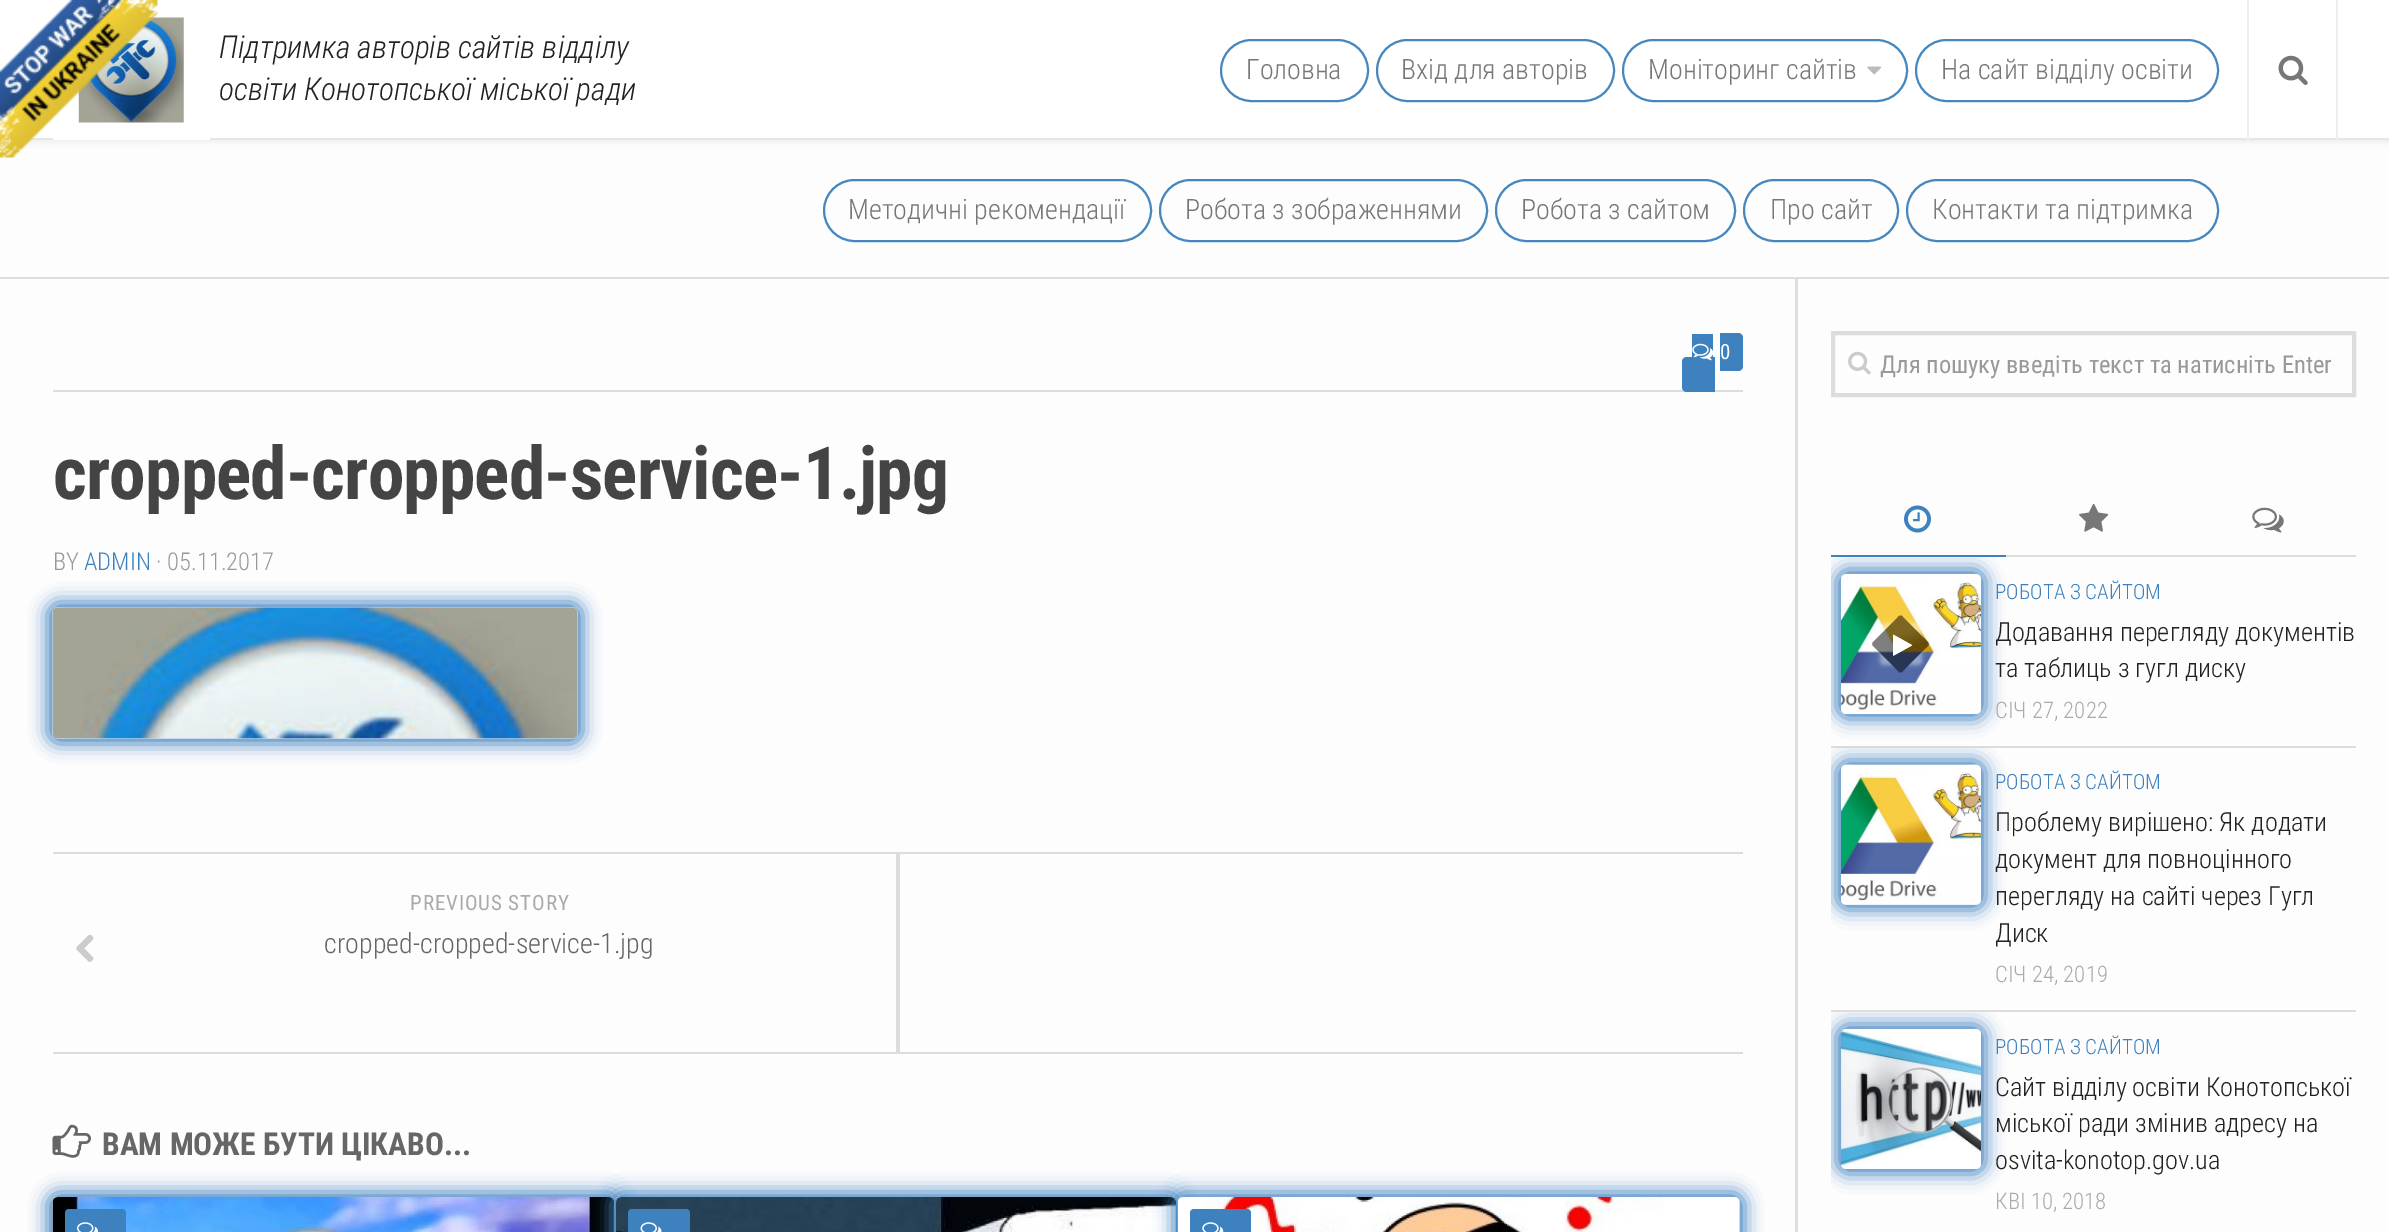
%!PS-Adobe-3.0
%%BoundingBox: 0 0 2389 1232
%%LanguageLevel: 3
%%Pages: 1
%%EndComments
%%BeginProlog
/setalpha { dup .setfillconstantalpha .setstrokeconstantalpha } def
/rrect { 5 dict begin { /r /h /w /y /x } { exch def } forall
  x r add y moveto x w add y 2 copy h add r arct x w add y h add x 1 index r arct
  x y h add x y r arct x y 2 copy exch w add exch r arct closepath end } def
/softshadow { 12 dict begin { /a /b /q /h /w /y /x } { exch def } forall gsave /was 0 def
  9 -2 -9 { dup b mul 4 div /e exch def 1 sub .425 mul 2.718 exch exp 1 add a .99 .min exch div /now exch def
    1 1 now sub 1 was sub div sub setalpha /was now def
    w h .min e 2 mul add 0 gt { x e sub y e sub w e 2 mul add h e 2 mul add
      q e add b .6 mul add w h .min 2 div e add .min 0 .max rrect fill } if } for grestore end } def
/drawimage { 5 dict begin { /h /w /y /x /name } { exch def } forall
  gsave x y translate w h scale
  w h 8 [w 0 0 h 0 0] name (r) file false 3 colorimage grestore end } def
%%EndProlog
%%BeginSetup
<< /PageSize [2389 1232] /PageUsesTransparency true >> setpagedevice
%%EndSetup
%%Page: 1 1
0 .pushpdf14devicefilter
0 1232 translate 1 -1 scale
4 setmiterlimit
0.992 setgray
0 0 2389 1232 rectfill
0 setgray
0 0 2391 140 0 4.5 0.1 softshadow
1 setgray
0 0 2389 138 rectfill
0.902 setgray
0 138 2389 2 rectfill
1 setgray
53 138 157 2 rectfill
(images/2.raw) 78 17 106 106 drawimage
(images/1.raw) 0 0 158 158 drawimage
0.275 0.529 0.749 setrgbcolor
2 setlinewidth
1221 40 147 61 30.5 rrect stroke
1377 40 237 61 30.5 rrect stroke
1623 40 284 61 30.5 rrect stroke
(images/3.raw) 1867 66 15 9 drawimage
1916 40 302 61 30.5 rrect stroke
0.933 setgray
2336 0 2 140 rectfill
2247 0 2 140 rectfill
(images/4.raw) 2278 55 30 30 drawimage
0.867 setgray
0 277 2389 2 rectfill
0.275 0.529 0.749 setrgbcolor
824 180 327 61 30.5 rrect stroke
1160 180 327 61 30.5 rrect stroke
1496 180 239 61 30.5 rrect stroke
1744 180 154 61 30.5 rrect stroke
1907 180 311 61 30.5 rrect stroke
0.875 setgray
1795 279 3 953 rectfill
0.867 setgray
53 390 1690 2 rectfill
0.239 0.51 0.749 setrgbcolor
newpath 1687 357 moveto 1715 357 lineto 1715 392 lineto 1687 392 lineto 1684 392 1682 390 1682 387 curveto 1682 362 lineto 1682 359 1684 357 1687 357 curveto closepath fill
1692 334 21 23 rectfill
newpath 1720 333 moveto 1738 333 lineto 1741 333 1743 335 1743 338 curveto 1743 366 lineto 1743 369 1741 371 1738 371 curveto 1720 371 lineto closepath fill
(images/5.raw) 1692 343 21 18 drawimage
0.243 0.51 0.749 setrgbcolor
47 602 536 142 11 9 1 softshadow
(images/6.raw) 52 607 526 132 drawimage
0.867 setgray
53 852 1690 2 rectfill
53 1052 1690 2 rectfill
newpath 54 1052 moveto 900 1052 lineto 900 854 lineto 898 854 lineto 898 1052 lineto closepath fill
896 854 2 198 rectfill
(images/7.raw) 76 934 18 28 drawimage
(images/8.raw) 52 1124 39 34 drawimage
0.243 0.51 0.749 setrgbcolor
47 1192 573 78 11 9 1 softshadow
(images/9.raw) 52 1197 563 35 drawimage
0.239 0.51 0.749 setrgbcolor
65 1209 61 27 4 rrect fill
(images/10.raw) 77 1222 21 10 drawimage
0.243 0.51 0.749 setrgbcolor
611 1192 570 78 11 9 1 softshadow
(images/11.raw) 616 1197 560 35 drawimage
0.239 0.51 0.749 setrgbcolor
628 1209 62 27 4 rrect fill
(images/12.raw) 640 1222 22 10 drawimage
0.243 0.51 0.749 setrgbcolor
1173 1192 572 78 11 9 1 softshadow
(images/13.raw) 1177 1197 563 35 drawimage
0.239 0.51 0.749 setrgbcolor
1190 1209 61 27 4 rrect fill
(images/14.raw) 1202 1222 22 10 drawimage
0.867 setgray
4 setlinewidth
1833 333 521 62 rectstroke
(images/15.raw) 1848 351 23 24 drawimage
0.239 0.51 0.749 setrgbcolor
1831 555 175 2 rectfill
(images/16.raw) 1904 505 27 28 drawimage
0.867 setgray
2006 555 350 2 rectfill
(images/17.raw) 2079 503 30 29 drawimage
(images/18.raw) 2252 507 32 26 drawimage
1831 746 525 2 rectfill
gsave
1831 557 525 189 rectclip
0.243 0.51 0.749 setrgbcolor
1836 569 150 150 11 9 1 softshadow
grestore
(images/19.raw) 1841 574 140 140 drawimage
gsave
newpath 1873 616 moveto 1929 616 lineto 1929 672 lineto 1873 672 lineto closepath 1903 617 moveto 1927.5 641.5 lineto 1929 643 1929 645 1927.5 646.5 curveto 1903 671 lineto 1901.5 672.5 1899.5 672.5 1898 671 curveto 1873.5 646.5 lineto 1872 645 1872 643 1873.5 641.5 curveto 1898 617 lineto 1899.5 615.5 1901.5 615.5 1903 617 curveto closepath eoclip newpath
1 setgray
1880 623 42 42 4 2 0.4 softshadow
grestore
0.5 setalpha
0 setgray
newpath 1903 617 moveto 1928 642 lineto 1929 643 1929 645 1928 646 curveto 1903 671 lineto 1902 673 1899 673 1898 671 curveto 1873 646 lineto 1872 645 1872 643 1873 642 curveto 1898 617 lineto 1899 615 1902 615 1903 617 curveto closepath fill
1 setalpha
(images/20.raw) 1893 634 20 22 drawimage
0.867 setgray
1831 1010 525 2 rectfill
gsave
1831 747 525 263 rectclip
0.243 0.51 0.749 setrgbcolor
1836 760 150 150 11 9 1 softshadow
grestore
(images/21.raw) 1841 764 140 141 drawimage
gsave
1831 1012 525 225 rectclip
0.243 0.51 0.749 setrgbcolor
1836 1024 150 150 11 9 1 softshadow
grestore
(images/22.raw) 1841 1029 140 140 drawimage
/RobotoCondensed-LightItalic [31.5 0 0 -31.5 0 0] selectfont
0.133 setgray
219 58 moveto (Підтримка авторів сайтів відділу) show
219 100 moveto (освіти Конотопської міської ради) show
/RobotoCondensed-Light [28 0 0 -28 0 0] selectfont
0.467 setgray
1246 79 moveto (Головна) show
1401 79 moveto (Вхід для авторів) show
1648 79 moveto (Моніторинг сайтів) show
1941 79 moveto (На сайт відділу освіти) show
848 219 moveto (Методичні рекомендації) show
1185 219 moveto (Робота з зображеннями) show
1521 219 moveto (Робота з сайтом) show
1770 219 moveto (Про сайт) show
1932 219 moveto (Контакти та підтримка) show
/RobotoCondensed-Regular [21 0 0 -21 0 0] selectfont
1 setgray
1720 359 moveto (0) show
/RobotoCondensed-Bold [73.5 0 0 -73.5 0 0] selectfont
0.267 setgray
53 499 moveto -0.9 0 (cropped-cropped-service-1.jpg) ashow
/RobotoCondensed-Light [24.5 0 0 -24.5 0 0] selectfont
0.6 setgray
53 570 moveto (BY) show
0.239 0.51 0.749 setrgbcolor
84 570 moveto (ADMIN) show
0.6 setgray
156 570 moveto (· 05.11.2017) show
/RobotoCondensed-Regular [21 0 0 -21 0 0] selectfont
0.667 setgray
410 910 moveto 0.9 0 (PREVIOUS STORY) ashow
/RobotoCondensed-Light [28 0 0 -28 0 0] selectfont
0.4 setgray
324 953 moveto (cropped-cropped-service-1.jpg) show
/RobotoCondensed-Bold [31.5 0 0 -31.5 0 0] selectfont
102 1155 moveto (ВАМ МОЖЕ БУТИ ЦІКАВО...) show
/RobotoCondensed-Regular [24.5 0 0 -24.5 0 0] selectfont
0.6 setgray
1880 373 moveto (Для пошуку введіть текст та натисніть Enter) show
/RobotoCondensed-Light [21 0 0 -21 0 0] selectfont
0.239 0.51 0.749 setrgbcolor
1995 599 moveto (РОБОТА З САЙТОМ) show
/RobotoCondensed-Light [26.25 0 0 -26.25 0 0] selectfont
0.133 setgray
1995 641 moveto (Додавання перегляду документів) show
1995 677 moveto (та таблиць з гугл диску) show
/RobotoCondensed-Light [22.75 0 0 -22.75 0 0] selectfont
0.667 setgray
1995 718 moveto (СІЧ 27, 2022) show
/RobotoCondensed-Light [21 0 0 -21 0 0] selectfont
0.239 0.51 0.749 setrgbcolor
1995 789 moveto (РОБОТА З САЙТОМ) show
/RobotoCondensed-Light [26.25 0 0 -26.25 0 0] selectfont
0.133 setgray
1995 831 moveto (Проблему вирішено: Як додати) show
1995 868 moveto (документ для повноцінного) show
1995 905 moveto (перегляду на сайті через Гугл) show
1995 942 moveto (Диск) show
/RobotoCondensed-Light [22.75 0 0 -22.75 0 0] selectfont
0.667 setgray
1995 982 moveto (СІЧ 24, 2019) show
/RobotoCondensed-Light [21 0 0 -21 0 0] selectfont
0.239 0.51 0.749 setrgbcolor
1995 1054 moveto (РОБОТА З САЙТОМ) show
/RobotoCondensed-Light [26.25 0 0 -26.25 0 0] selectfont
0.133 setgray
1995 1096 moveto (Сайт відділу освіти Конотопської) show
1995 1132 moveto (міської ради змінив адресу на) show
1995 1169 moveto (osvita-konotop.gov.ua) show
/RobotoCondensed-Light [22.75 0 0 -22.75 0 0] selectfont
0.667 setgray
1995 1209 moveto (КВІ 10, 2018) show
.poppdf14devicefilter showpage
%%EOF
